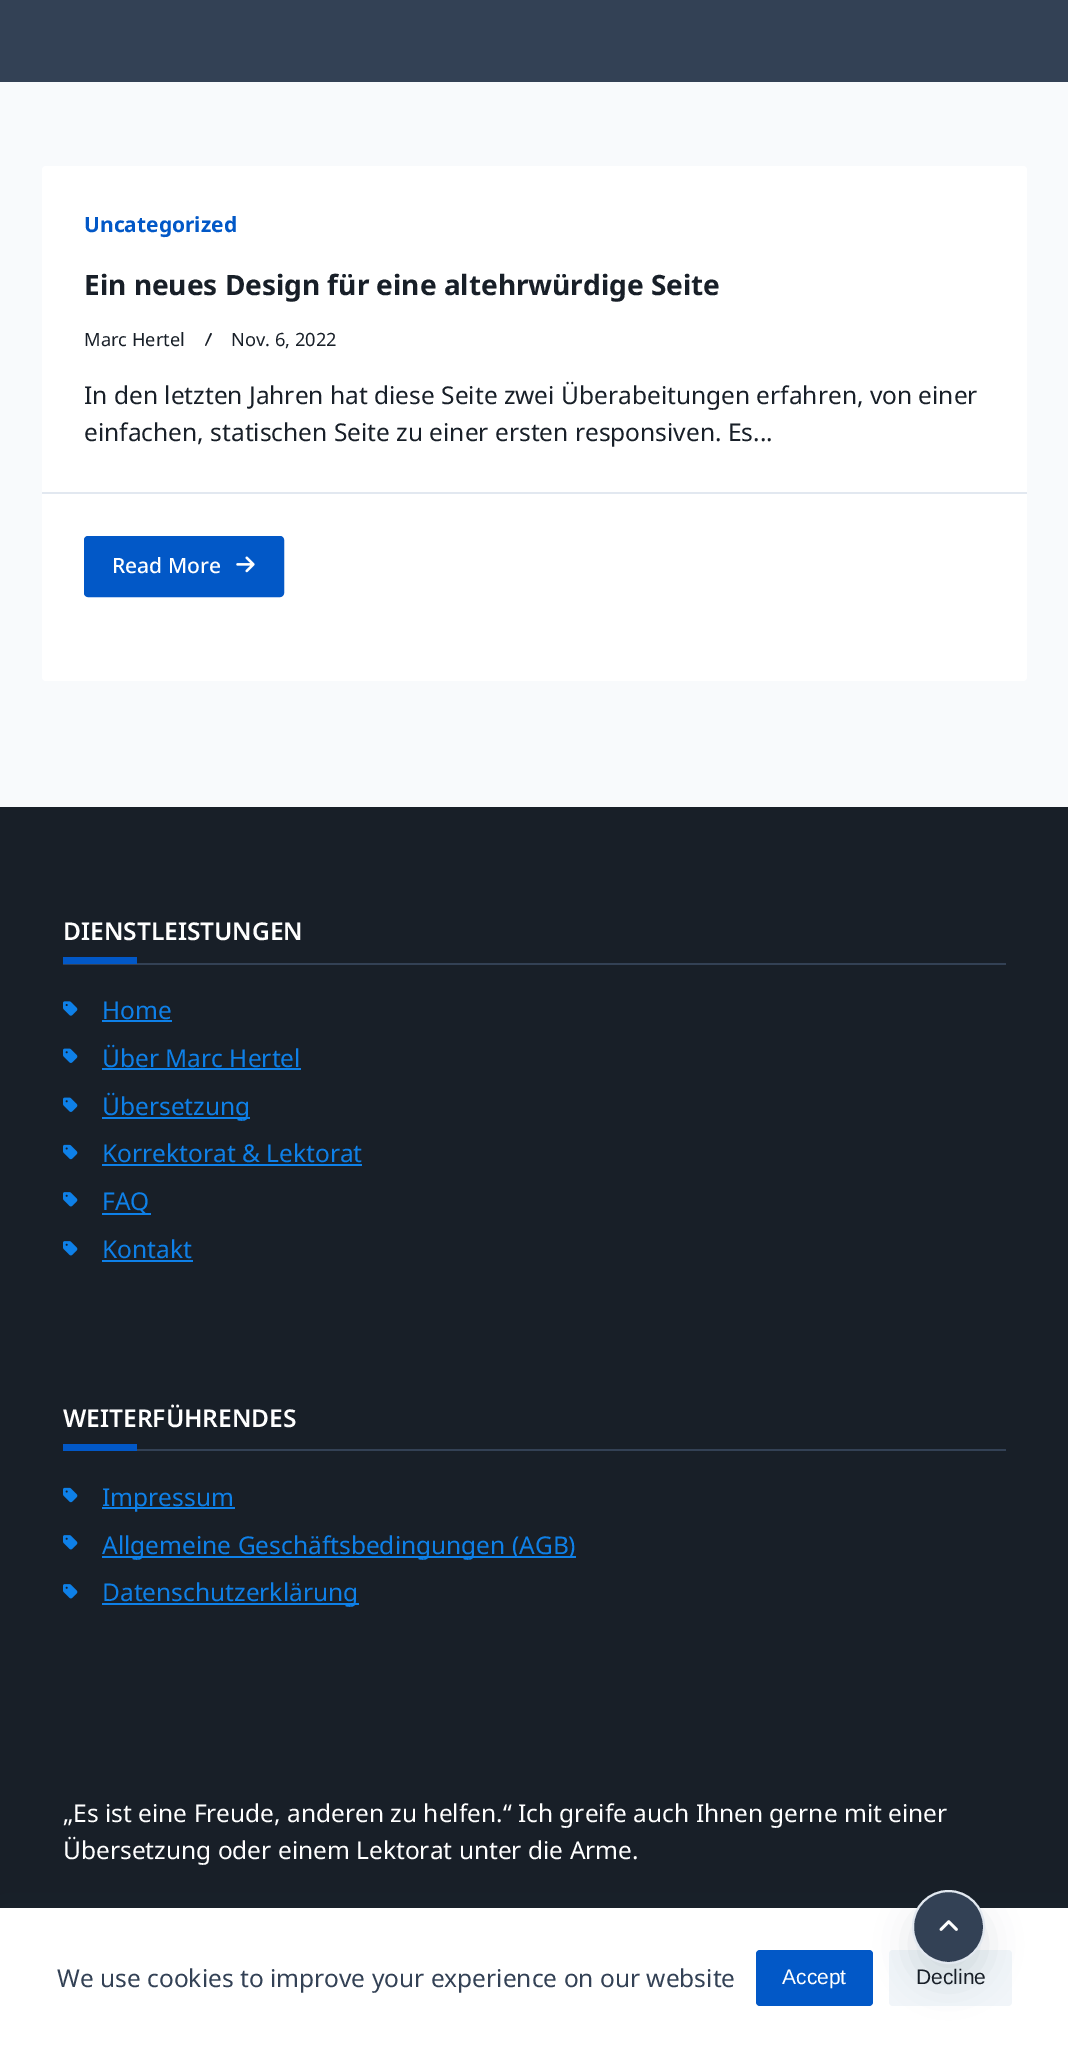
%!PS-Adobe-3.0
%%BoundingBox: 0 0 1068 2046
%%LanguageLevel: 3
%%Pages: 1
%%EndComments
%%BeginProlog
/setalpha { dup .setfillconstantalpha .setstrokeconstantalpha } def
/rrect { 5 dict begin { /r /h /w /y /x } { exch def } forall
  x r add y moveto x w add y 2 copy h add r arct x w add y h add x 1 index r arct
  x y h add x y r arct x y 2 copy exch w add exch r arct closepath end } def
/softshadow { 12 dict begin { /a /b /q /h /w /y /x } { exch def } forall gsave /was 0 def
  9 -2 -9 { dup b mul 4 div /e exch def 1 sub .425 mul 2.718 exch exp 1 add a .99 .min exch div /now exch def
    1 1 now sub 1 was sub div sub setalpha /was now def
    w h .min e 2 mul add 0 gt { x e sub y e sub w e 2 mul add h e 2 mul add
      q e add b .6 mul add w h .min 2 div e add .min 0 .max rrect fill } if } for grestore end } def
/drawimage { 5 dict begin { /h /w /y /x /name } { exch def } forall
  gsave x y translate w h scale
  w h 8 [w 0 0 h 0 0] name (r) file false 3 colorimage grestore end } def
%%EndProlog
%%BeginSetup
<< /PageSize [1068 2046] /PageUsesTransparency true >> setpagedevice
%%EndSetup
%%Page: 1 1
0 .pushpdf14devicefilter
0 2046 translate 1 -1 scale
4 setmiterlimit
0.973 0.98 0.988 setrgbcolor
0 0 1068 2046 rectfill
0.2 0.255 0.333 setrgbcolor
0 0 1068 82 rectfill
1 setgray
42 166 985 515 4 rrect fill
0.094 0.122 0.157 setrgbcolor
newpath 205 345.5 moveto 210.5 333 lineto 212 333.5 lineto 206 346 lineto closepath fill
0.886 0.91 0.941 setrgbcolor
42 492 985 2 rectfill
0.008 0.345 0.78 setrgbcolor
85 537 198 59 3 rrect gsave fill grestore
2 setlinewidth
stroke
(images/1.raw) 236 556 19 17 drawimage
0.094 0.122 0.157 setrgbcolor
0 807 1068 1101 rectfill
0.2 0.255 0.333 setrgbcolor
63 963 943 2 rectfill
0.008 0.345 0.78 setrgbcolor
63 957 74 7 rectfill
(images/2.raw) 63 1001 15 15 drawimage
0.055 0.502 0.91 setrgbcolor
102 1020 70 2 rectfill
(images/3.raw) 63 1048 15 15 drawimage
102 1068 199 2 rectfill
(images/3.raw) 63 1097 15 15 drawimage
102 1117 148 2 rectfill
(images/4.raw) 63 1144 15 16 drawimage
102 1164 260 2 rectfill
(images/5.raw) 63 1192 15 15 drawimage
102 1213 49 2 rectfill
(images/5.raw) 63 1241 15 15 drawimage
102 1260 91 2 rectfill
0.2 0.255 0.333 setrgbcolor
137 1449 869 2 rectfill
0.008 0.345 0.78 setrgbcolor
63 1444 74 7 rectfill
(images/4.raw) 63 1487 15 16 drawimage
0.055 0.502 0.91 setrgbcolor
102 1507 133 2 rectfill
(images/5.raw) 63 1535 15 15 drawimage
102 1556 474 2 rectfill
(images/5.raw) 63 1584 15 15 drawimage
102 1603 257 2 rectfill
0.173 0.243 0.314 setrgbcolor
0 1908 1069 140 0 21 0.15 softshadow
1 setgray
0 1908 1068 138 rectfill
0.008 0.345 0.78 setrgbcolor
756 1950 117 56 4 rrect fill
0.945 0.961 0.976 setrgbcolor
889 1950 123 56 4 rrect fill
0.173 0.243 0.314 setrgbcolor
912 1908 73 73 36.5 17.5 0.15 softshadow
0.2 0.255 0.333 setrgbcolor
913 1891 71 72 35.5 rrect gsave fill grestore
0.886 0.91 0.941 setrgbcolor
stroke
(images/6.raw) 939 1920 19 11 drawimage
/NotoSans-Bold [21 0 0 -21 0 0] selectfont
0.008 0.345 0.78 setrgbcolor
84 232 moveto (Uncategorized) show
/NotoSans-Bold [28 0 0 -28 0 0] selectfont
0.094 0.122 0.157 setrgbcolor
84 295 moveto (Ein neues Design für eine altehrwürdige Seite) show
/NotoSans-Regular [18.25 0 0 -18.25 0 0] selectfont
84 346 moveto (Marc Hertel) show
231 346 moveto (Nov. 6, 2022) show
/NotoSans-Regular [24.5 0 0 -24.5 0 0] selectfont
84 404 moveto (In den letzten Jahren hat diese Seite zwei Überabeitungen erfahren, von einer) show
84 441 moveto (einfachen, statischen Seite zu einer ersten responsiven. Es...) show
/NotoSans-Medium [21 0 0 -21 0 0] selectfont
1 setgray
112 573 moveto (Read More) show
/NotoSans-SemiBold [24.5 0 0 -24.5 0 0] selectfont
63 940 moveto (DIENSTLEISTUNGEN) show
/NotoSans-Regular [24.5 0 0 -24.5 0 0] selectfont
0.055 0.502 0.91 setrgbcolor
102 1019 moveto (Home) show
102 1067 moveto (Über Marc Hertel) show
102 1115 moveto (Übersetzung) show
102 1162 moveto (Korrektorat & Lektorat) show
102 1210 moveto (FAQ) show
102 1258 moveto (Kontakt) show
/NotoSans-SemiBold [24.5 0 0 -24.5 0 0] selectfont
1 setgray
63 1427 moveto (WEITERFÜHRENDES) show
/NotoSans-Regular [24.5 0 0 -24.5 0 0] selectfont
0.055 0.502 0.91 setrgbcolor
102 1506 moveto (Impressum) show
102 1554 moveto (Allgemeine Geschäftsbedingungen \(AGB\)) show
102 1601 moveto (Datenschutzerklärung) show
1 setgray
63 1822 moveto („Es ist eine Freude, anderen zu helfen.“ Ich greife auch Ihnen gerne mit einer) show
63 1859 moveto (Übersetzung oder einem Lektorat unter die Arme.) show
0.2 0.255 0.333 setrgbcolor
57 1987 moveto (We use cookies to improve your experience on our website) show
/LiberationSans-Regular [21 0 0 -21 0 0] selectfont
1 setgray
782 1984 moveto (Accept) show
0.094 0.122 0.157 setrgbcolor
916 1984 moveto (Decline) show
.poppdf14devicefilter showpage
%%EOF
